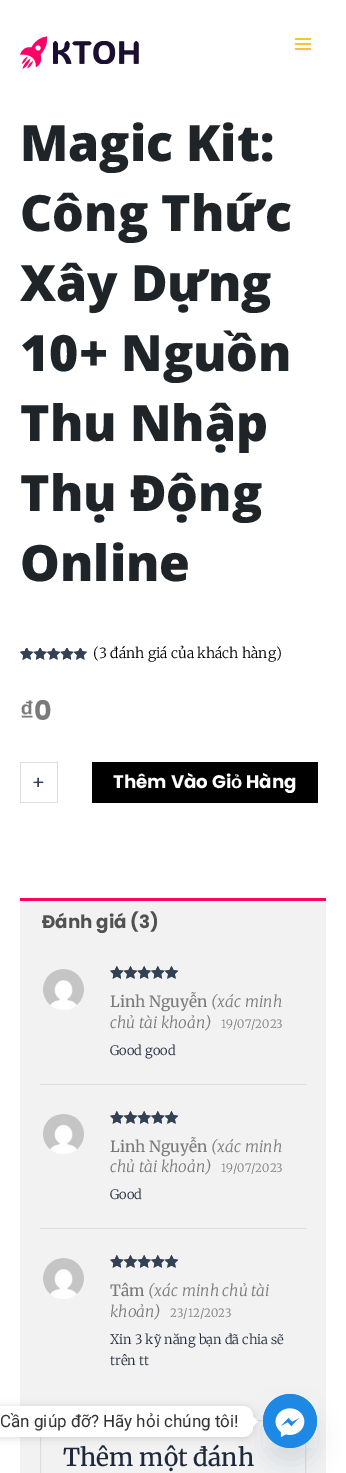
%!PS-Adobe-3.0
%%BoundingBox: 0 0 346 1473
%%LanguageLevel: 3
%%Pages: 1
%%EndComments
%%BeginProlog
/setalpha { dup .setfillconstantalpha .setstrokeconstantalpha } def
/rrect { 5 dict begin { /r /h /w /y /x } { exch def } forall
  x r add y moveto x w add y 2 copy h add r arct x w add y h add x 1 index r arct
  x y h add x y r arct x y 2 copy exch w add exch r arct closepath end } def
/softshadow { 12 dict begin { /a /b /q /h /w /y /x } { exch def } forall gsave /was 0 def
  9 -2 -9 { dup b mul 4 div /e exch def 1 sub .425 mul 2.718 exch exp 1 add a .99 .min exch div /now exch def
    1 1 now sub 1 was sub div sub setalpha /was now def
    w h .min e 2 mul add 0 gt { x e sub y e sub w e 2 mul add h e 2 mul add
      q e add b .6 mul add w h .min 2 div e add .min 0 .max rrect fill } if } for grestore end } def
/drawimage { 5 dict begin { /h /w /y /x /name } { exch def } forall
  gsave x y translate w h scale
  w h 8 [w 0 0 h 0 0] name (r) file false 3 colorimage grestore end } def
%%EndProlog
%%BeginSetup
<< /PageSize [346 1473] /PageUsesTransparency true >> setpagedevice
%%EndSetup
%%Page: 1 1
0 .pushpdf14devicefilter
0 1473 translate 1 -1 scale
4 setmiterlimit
1 setgray
0 0 346 1473 rectfill
(images/1.raw) 20 36 119 33 drawimage
(images/2.raw) 294 38 18 12 drawimage
(images/3.raw) 20 648 67 12 drawimage
(images/4.raw) 20 648 67 12 drawimage
(images/5.raw) 20 648 6 12 drawimage
0.867 setgray
20 762 38 1 rectfill
20 802 38 1 rectfill
57 762 1 41 rectfill
20 762 1 41 rectfill
0 setgray
92 762 226 41 rectfill
1 0 0.4 setrgbcolor
20 898 306 3 rectfill
0.949 setgray
20 901 306 572 rectfill
0.867 setgray
40 1084 266 1 rectfill
(images/6.raw) 43 969 41 41 drawimage
(images/7.raw) 110 966 69 13 drawimage
(images/8.raw) 110 966 69 13 drawimage
40 1228 266 1 rectfill
(images/9.raw) 43 1114 41 40 drawimage
(images/7.raw) 110 1111 69 13 drawimage
(images/8.raw) 110 1111 69 13 drawimage
(images/10.raw) 43 1258 41 41 drawimage
(images/7.raw) 110 1255 69 13 drawimage
(images/8.raw) 110 1255 69 13 drawimage
40.5 1420.5 265 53 rectstroke
0.286 0.408 0.494 setrgbcolor
263 1410 54 54 27 12 0.16 softshadow
(images/11.raw) 263 1394 54 54 drawimage
0 setgray
-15 1407 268 31 10 4 0.15 softshadow
1 setgray
-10 1406 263 31 10 rrect fill
newpath 253 1426.5 moveto 253 1416.5 lineto 258 1421.5 lineto closepath fill
/OpenSans-ExtraBold [50 0 0 -50 0 0] selectfont
0.118 0.141 0.157 setrgbcolor
20 161 moveto (Magic Kit:) show
20 231 moveto (Công Thức) show
20 301 moveto (Xây Dựng) show
20 371 moveto (10+ Nguồn) show
20 441 moveto (Thu Nhập) show
20 511 moveto (Thụ Động) show
20 581 moveto (Online) show
/Merriweather-Light [14 0 0 -14 0 0] selectfont
0 setgray
93 658 moveto (\(3 đánh giá của khách hàng\)) show
/LiberationSans-Bold [27 0 0 -27 0 0] selectfont
0.478 setgray
20 720 moveto (₫) show
/Poppins-Bold [27 0 0 -27 0 0] selectfont
34 720 moveto (0) show
/Poppins-Regular [18 0 0 -18 0 0] selectfont
0.2 0.255 0.333 setrgbcolor
35 789 moveto (-) show
32 789 moveto (+) show
/Poppins-Bold [18.25 0 0 -18.25 0 0] selectfont
1 setgray
113 788 moveto (Thêm Vào Gi) show
/LiberationSans-Bold [18.25 0 0 -18.25 0 0] selectfont
231 788 moveto (ỏ) show
/Poppins-Bold [18.25 0 0 -18.25 0 0] selectfont
246 788 moveto (Hàng) show
0.318 setgray
42 928 moveto (Đánh giá \(3\)) show
/Merriweather-Medium [15.5 0 0 -15.5 0 0] selectfont
0.478 setgray
110 1007 moveto (Linh Nguyễn) show
/Merriweather-LightItalic [15.5 0 0 -15.5 0 0] selectfont
211 1007 moveto (\(xác minh) show
110 1028 moveto (chủ tài khoản\)) show
/Merriweather-Light [11.5 0 0 -11.5 0 0] selectfont
221 1028 moveto (19/07/2023) show
/Merriweather-Light [13 0 0 -13 0 0] selectfont
0.118 0.161 0.231 setrgbcolor
110 1055 moveto (Good good) show
/Merriweather-Medium [15.5 0 0 -15.5 0 0] selectfont
0.478 setgray
110 1152 moveto (Linh Nguyễn) show
/Merriweather-LightItalic [15.5 0 0 -15.5 0 0] selectfont
211 1152 moveto (\(xác minh) show
110 1172 moveto (chủ tài khoản\)) show
/Merriweather-Light [11.5 0 0 -11.5 0 0] selectfont
221 1172 moveto (19/07/2023) show
/Merriweather-Light [13 0 0 -13 0 0] selectfont
0.118 0.161 0.231 setrgbcolor
110 1199 moveto (Good) show
/Merriweather-Medium [15.5 0 0 -15.5 0 0] selectfont
0.478 setgray
110 1296 moveto (Tâm) show
/Merriweather-LightItalic [15.5 0 0 -15.5 0 0] selectfont
148 1296 moveto (\(xác minh chủ tài) show
110 1317 moveto (khoản\)) show
/Merriweather-Light [11.5 0 0 -11.5 0 0] selectfont
170 1317 moveto (23/12/2023) show
/Merriweather-Light [13 0 0 -13 0 0] selectfont
0.118 0.161 0.231 setrgbcolor
110 1344 moveto (Xin 3 kỹ năng bạn đã chia sẽ) show
110 1365 moveto (trên tt) show
/Merriweather-Medium [24.5 0 0 -24.5 0 0] selectfont
63 1466 moveto (Thêm một đánh) show
/Roboto-Regular [17 0 0 -17 0 0] selectfont
0.2 setgray
0 1427 moveto (Cần giúp đỡ? Hãy hỏi chúng tôi!) show
.poppdf14devicefilter showpage
%%EOF
